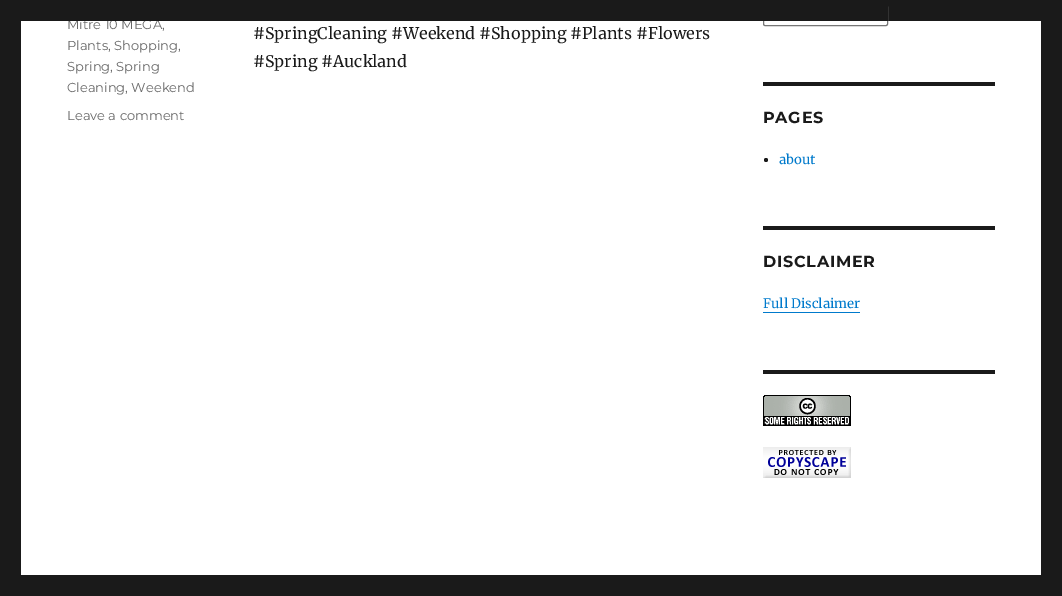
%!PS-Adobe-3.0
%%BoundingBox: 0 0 1062 596
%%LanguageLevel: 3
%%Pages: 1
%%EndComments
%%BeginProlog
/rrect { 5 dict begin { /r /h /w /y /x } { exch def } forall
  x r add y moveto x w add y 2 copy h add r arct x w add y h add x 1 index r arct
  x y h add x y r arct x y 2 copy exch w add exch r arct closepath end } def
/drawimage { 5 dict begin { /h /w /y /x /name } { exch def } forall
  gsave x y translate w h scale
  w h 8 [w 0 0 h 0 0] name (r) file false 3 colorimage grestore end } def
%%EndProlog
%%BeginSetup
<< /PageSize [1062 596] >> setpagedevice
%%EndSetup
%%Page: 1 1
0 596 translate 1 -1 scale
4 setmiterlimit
0.102 setgray
0 0 1062 596 rectfill
1 setgray
21 21 1020 554 rectfill
0.463 setgray
763.5 5.5 124 20 1.5 rrect stroke
0.102 setgray
763 82 232 4 rectfill
newpath 766 160 2 0 360 arc closepath fill
763 226 232 4 rectfill
0 0.478 0.8 setrgbcolor
763 312 97 1 rectfill
0.102 setgray
763 370 232 4 rectfill
(images/1.raw) 763 395 88 31 drawimage
(images/2.raw) 763 447 88 31 drawimage
/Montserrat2-Thin [13 0 0 -13 0 0] selectfont
0.408 setgray
67 29 moveto (Mitre 10 MEGA,) show
0.102 setgray
68 5 820 16 rectfill
0.408 setgray
67 50 moveto (Plants, Shopping,) show
67 71 moveto (Spring, Spring) show
67 92 moveto (Cleaning, Weekend) show
67 120 moveto (Leave a comment) show
/Merriweather-Regular [16 0 0 -16 0 0] selectfont
0.102 setgray
253 39 moveto (#SpringCleaning #Weekend #Shopping #Plants #Flowers) show
253 67 moveto (#Spring #Auckland) show
/Montserrat-Thin [16 0 0 -16 0 0] selectfont
763 123 moveto 0.75 0 (PAGES) ashow
/Merriweather-Regular [13 0 0 -13 0 0] selectfont
0 0.478 0.8 setrgbcolor
779 164 moveto (about) show
/Montserrat-Thin [16 0 0 -16 0 0] selectfont
0.102 setgray
763 267 moveto 0.75 0 (DISCLAIMER) ashow
/Merriweather-Regular [13 0 0 -13 0 0] selectfont
0 0.478 0.8 setrgbcolor
763 308 moveto (Full Disclaimer) show
showpage
%%EOF
